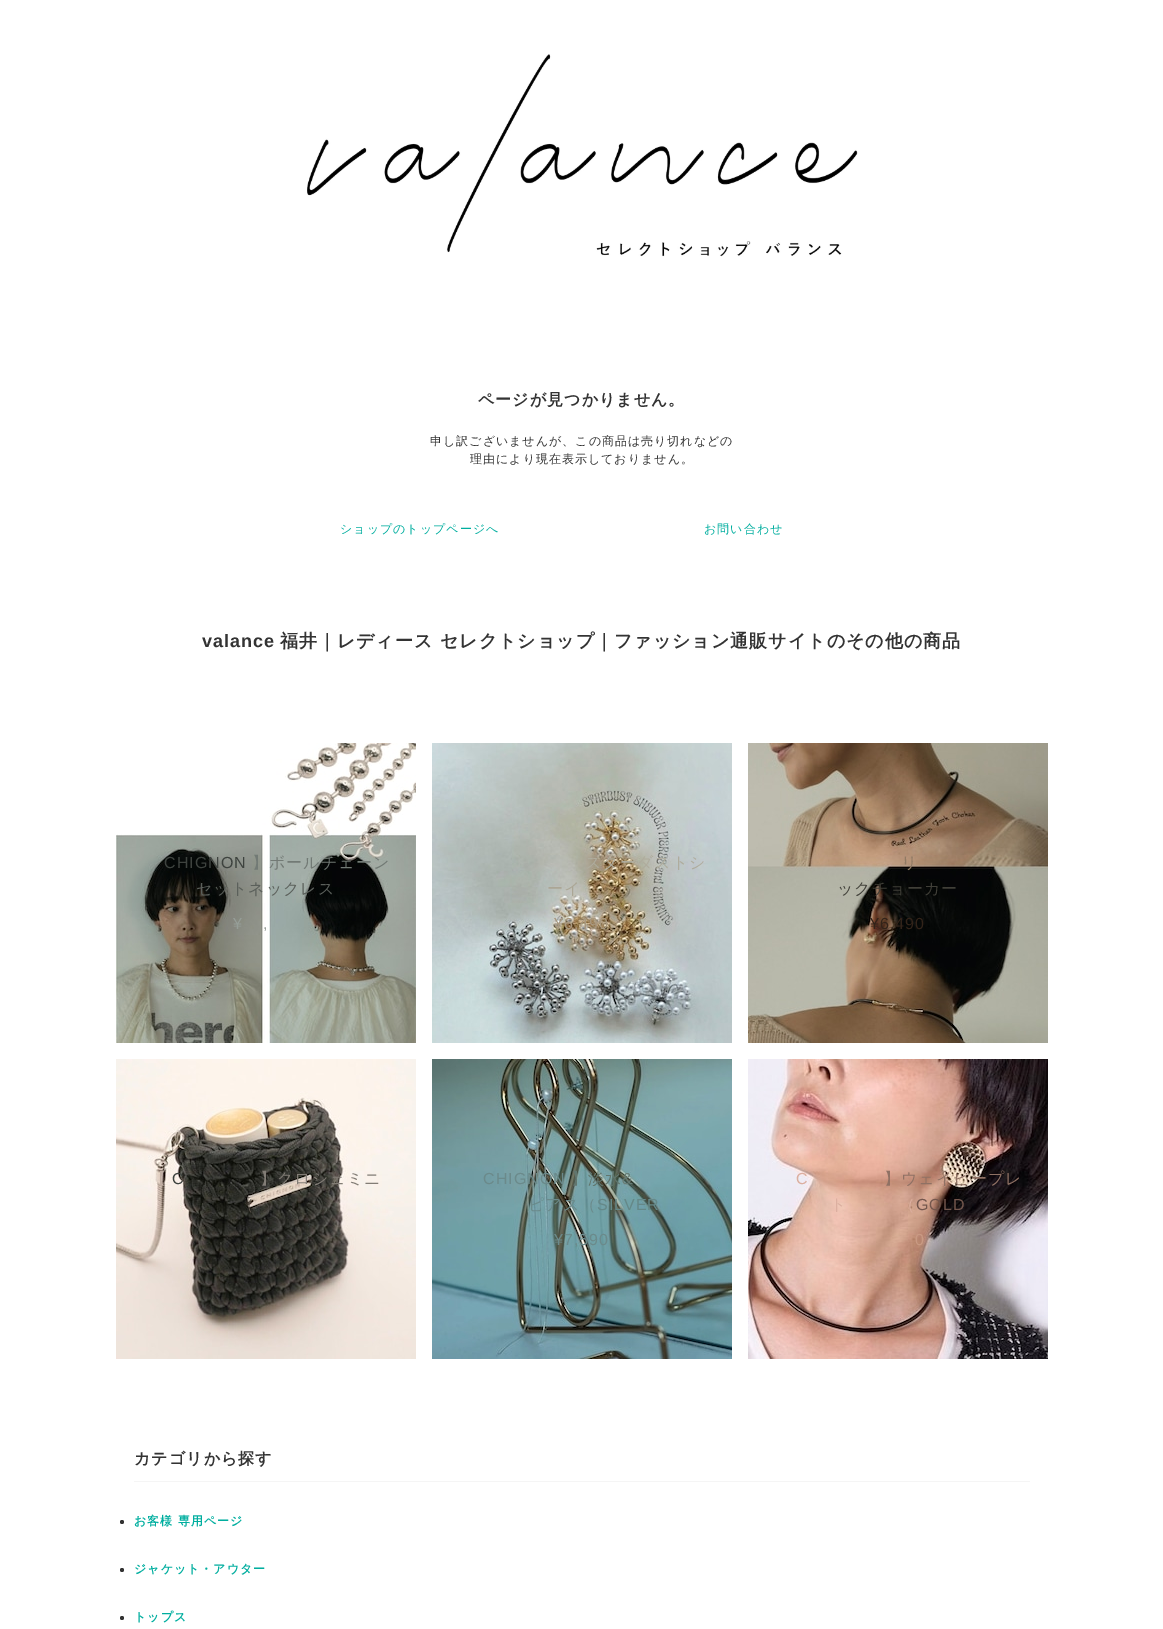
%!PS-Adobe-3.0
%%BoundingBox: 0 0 1163 1629
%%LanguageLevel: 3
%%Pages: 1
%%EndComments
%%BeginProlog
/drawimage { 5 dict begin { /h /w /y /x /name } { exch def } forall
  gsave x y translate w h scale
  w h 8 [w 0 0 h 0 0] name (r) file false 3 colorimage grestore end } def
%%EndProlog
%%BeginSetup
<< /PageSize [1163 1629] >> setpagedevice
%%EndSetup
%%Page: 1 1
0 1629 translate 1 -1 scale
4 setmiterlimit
1 setgray
0 0 1163 1629 rectfill
(images/1.raw) 307 54 551 203 drawimage
(images/2.raw) 116 743 300 300 drawimage
(images/3.raw) 432 743 300 300 drawimage
(images/4.raw) 748 743 300 300 drawimage
(images/5.raw) 116 1059 300 300 drawimage
(images/6.raw) 432 1059 300 300 drawimage
(images/7.raw) 748 1059 300 300 drawimage
0.961 setgray
134 1481 896 1 rectfill
0.2 setgray
newpath 122 1522 2 0 360 arc closepath fill
newpath 122 1570 2 0 360 arc closepath fill
newpath 122 1618 2 0 360 arc closepath fill
/WenQuanYiZenHei-Bold [16 0 0 -16 0 0] selectfont
478 405 moveto 1 0 (ページが見つかりません。) ashow
/WenQuanYiZenHei-Medium [12 0 0 -12 0 0] selectfont
430 445 moveto 1 0 (申し訳ございませんが、この商品は売り切れなどの) ashow
470 463 moveto 1 0 (理由により現在表示しておりません。) ashow
0 0.682 0.624 setrgbcolor
340 533 moveto 1 0 (ショップのトップページへ) ashow
704 533 moveto 1 0 (お問い合わせ) ashow
/LiberationSans-Bold [18 0 0 -18 0 0] selectfont
0.2 setgray
202 647 moveto 1 0 (valance) ashow
/WenQuanYiZenHei-Bold [18 0 0 -18 0 0] selectfont
280 647 moveto 1 0 (福井｜レディース セレクトショップ｜ファッション通販サイトのその他の商品) ashow
/LiberationSans-Regular [16 0 0 -16 0 0] selectfont
0.243 0.263 0.247 setrgbcolor
164 868 moveto 1 0 (CHIGNON) ashow
/WenQuanYiZenHei-Medium [16 0 0 -16 0 0] selectfont
0.447 0.478 0.459 setrgbcolor
252 868 moveto 1 0 (】ボールチェーン) ashow
0.357 0.376 0.357 setrgbcolor
196 894 moveto 1 0 (セットネックレス) ashow
/LiberationSans-Regular [16 0 0 -16 0 0] selectfont
0.588 0.62 0.596 setrgbcolor
233 929 moveto 1 0 (¥) ashow
263 929 moveto 1 0 (,) ashow
/WenQuanYiZenHei-Medium [16 0 0 -16 0 0] selectfont
0.686 0.675 0.616 setrgbcolor
585 868 moveto 1 0 (スターダストシ) ashow
0.671 0.651 0.584 setrgbcolor
547 894 moveto 1 0 (ーイ) ashow
/LiberationSans-Regular [16 0 0 -16 0 0] selectfont
0.659 0.596 0.498 setrgbcolor
554 929 moveto 1 0 (¥6,490) ashow
/WenQuanYiZenHei-Medium [16 0 0 -16 0 0] selectfont
0.565 0.478 0.392 setrgbcolor
901 868 moveto 1 0 (リ) ashow
0.251 0.247 0.22 setrgbcolor
837 894 moveto 1 0 (ックチョーカー) ashow
/LiberationSans-Regular [16 0 0 -16 0 0] selectfont
0.196 0.137 0.098 setrgbcolor
870 929 moveto 1 0 (¥6,490) ashow
/WenQuanYiZenHei-Medium [16 0 0 -16 0 0] selectfont
0.753 0.682 0.639 setrgbcolor
150 1184 moveto 1 0 (【) ashow
/LiberationSans-Regular [16 0 0 -16 0 0] selectfont
0.243 0.263 0.247 setrgbcolor
172 1184 moveto 1 0 (C) ashow
/WenQuanYiZenHei-Medium [16 0 0 -16 0 0] selectfont
0.51 0.49 0.463 setrgbcolor
260 1184 moveto 1 0 (】クロシェミニ) ashow
0.349 0.322 0.29 setrgbcolor
238 1210 moveto 1 0 (（) ashow
/LiberationSans-Regular [16 0 0 -16 0 0] selectfont
0.42 0.541 0.545 setrgbcolor
483 1184 moveto 1 0 (CHIGNON) ashow
/WenQuanYiZenHei-Medium [16 0 0 -16 0 0] selectfont
0.38 0.463 0.431 setrgbcolor
571 1184 moveto 1 0 (】淡水) ashow
/LiberationSans-Regular [16 0 0 -16 0 0] selectfont
0.404 0.486 0.459 setrgbcolor
622 1184 moveto 1 0 (&) ashow
/WenQuanYiZenHei-Medium [16 0 0 -16 0 0] selectfont
0.42 0.541 0.545 setrgbcolor
528 1210 moveto 1 0 (ピアス（) ashow
/LiberationSans-Regular [16 0 0 -16 0 0] selectfont
0.396 0.533 0.533 setrgbcolor
597 1210 moveto 1 0 (SILVER) ashow
0.42 0.541 0.545 setrgbcolor
554 1245 moveto 1 0 (¥7,590) ashow
0.863 0.686 0.627 setrgbcolor
796 1184 moveto 1 0 (C) ashow
/WenQuanYiZenHei-Medium [16 0 0 -16 0 0] selectfont
0.561 0.443 0.392 setrgbcolor
884 1184 moveto 1 0 (】ウェイビープレ) ashow
0.863 0.686 0.627 setrgbcolor
830 1210 moveto 1 0 (ト) ashow
899 1210 moveto 1 0 (（) ashow
/LiberationSans-Regular [16 0 0 -16 0 0] selectfont
0.455 0.341 0.302 setrgbcolor
916 1210 moveto 1 0 (GOLD) ashow
0.788 0.604 0.514 setrgbcolor
915 1245 moveto 1 0 (0) ashow
/WenQuanYiZenHei-Bold [16 0 0 -16 0 0] selectfont
0.2 setgray
134 1464 moveto 1 0 (カテゴリから探す) ashow
/WenQuanYiZenHei-Bold [12 0 0 -12 0 0] selectfont
0 0.682 0.624 setrgbcolor
134 1525 moveto 1 0 (お客様 専用ページ) ashow
134 1573 moveto 1 0 (ジャケット・アウター) ashow
134 1621 moveto 1 0 (トップス) ashow
showpage
%%EOF
